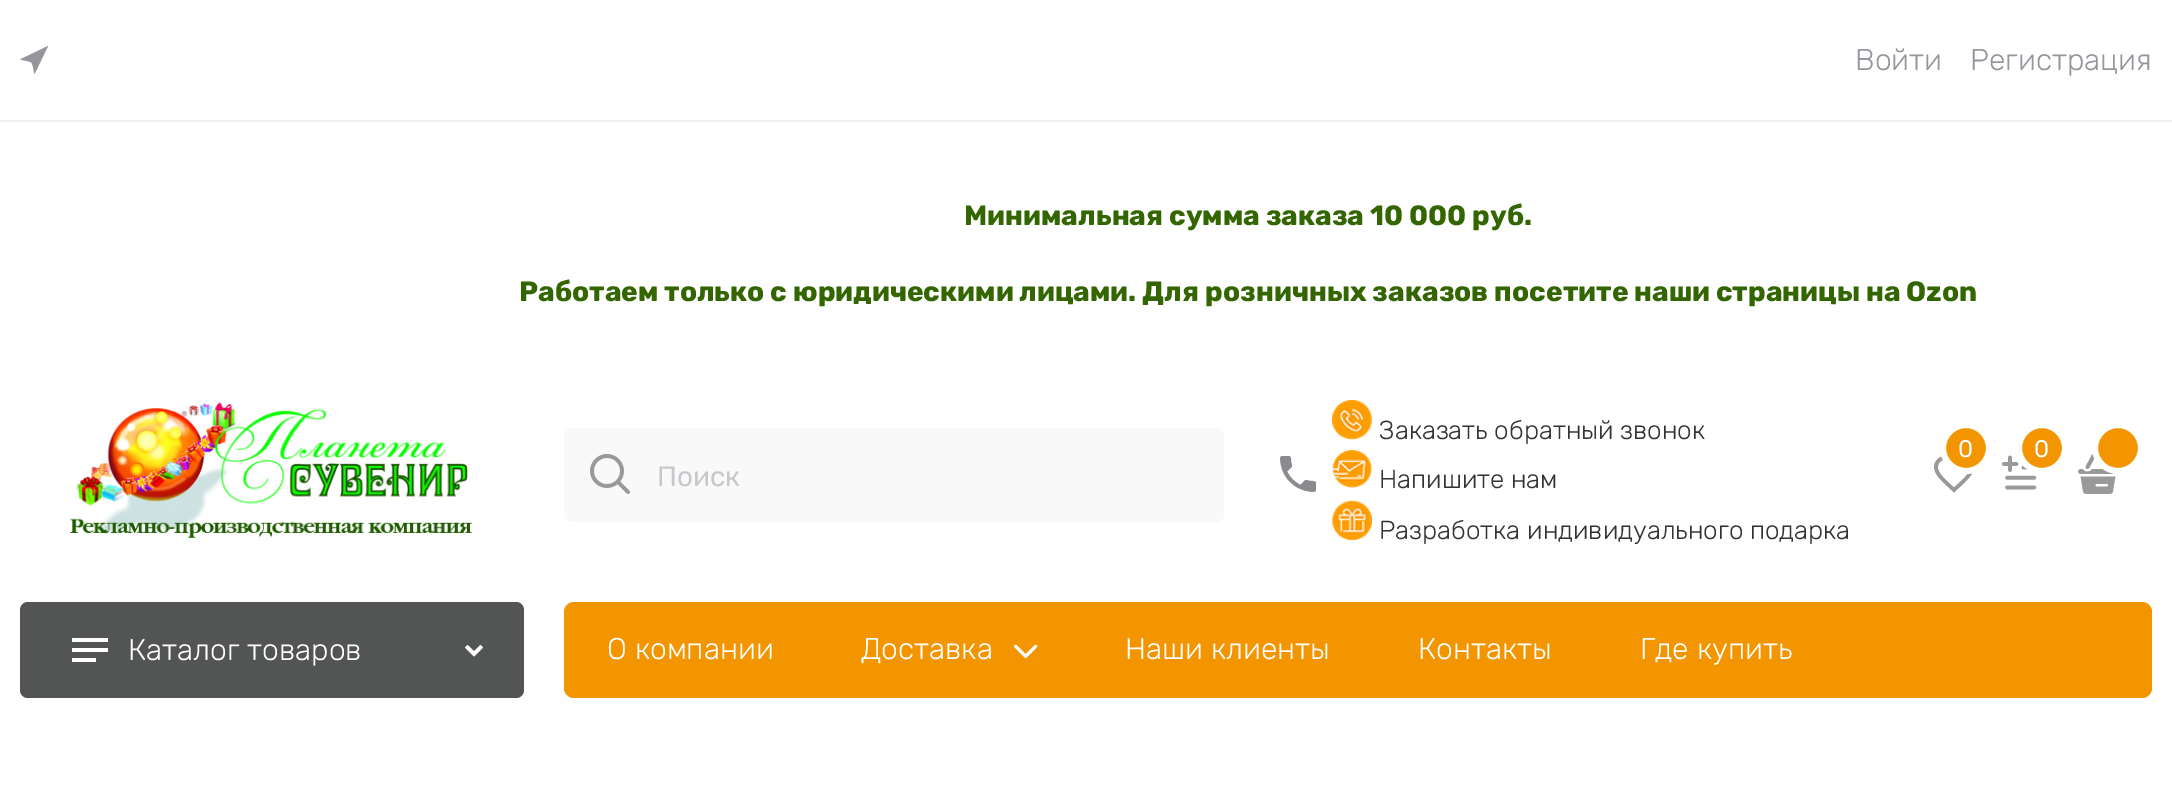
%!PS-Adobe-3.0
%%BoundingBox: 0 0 2172 797
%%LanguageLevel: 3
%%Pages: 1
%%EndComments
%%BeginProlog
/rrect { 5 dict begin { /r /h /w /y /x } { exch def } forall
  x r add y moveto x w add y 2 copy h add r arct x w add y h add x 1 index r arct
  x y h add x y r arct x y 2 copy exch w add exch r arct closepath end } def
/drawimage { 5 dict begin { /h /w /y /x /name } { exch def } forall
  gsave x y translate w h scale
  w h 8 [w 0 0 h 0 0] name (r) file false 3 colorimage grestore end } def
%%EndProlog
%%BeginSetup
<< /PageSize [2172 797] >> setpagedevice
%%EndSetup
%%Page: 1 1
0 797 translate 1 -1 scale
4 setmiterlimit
1 setgray
0 0 2172 797 rectfill
0.937 0.937 0.957 setrgbcolor
0 120 2172 2 rectfill
0.58 0.588 0.608 setrgbcolor
newpath 20 59.5 moveto 34.5 63 31 59.5 34.5 74 curveto 48 46 lineto closepath fill
(images/1.raw) 70 401 402 137 drawimage
0.976 setgray
564 428 660 94 8 rrect fill
(images/2.raw) 590 454 40 40 drawimage
(images/3.raw) 1280 456 36 36 drawimage
(images/4.raw) 1332 400 40 40 drawimage
(images/5.raw) 1332 450 40 38 drawimage
(images/6.raw) 1332 500 40 40 drawimage
(images/7.raw) 1934 456 39 37 drawimage
0.953 0.584 0 setrgbcolor
newpath 1966 448 23 0 360 arc closepath gsave fill grestore
1 setgray
6 setlinewidth
stroke
(images/8.raw) 2002 455 35 35 drawimage
0.953 0.584 0 setrgbcolor
newpath 2042 448 23 0 360 arc closepath gsave fill grestore
1 setgray
stroke
(images/9.raw) 2078 454 40 40 drawimage
0.953 0.584 0 setrgbcolor
newpath 2118 448 23 0 360 arc closepath gsave fill grestore
1 setgray
stroke
0.325 0.333 0.329 setrgbcolor
20 602 504 96 8 rrect fill
1 setgray
newpath 72 662 moveto 96 662 lineto 96 658 lineto 72 658 lineto closepath 72 638 moveto 72 642 lineto 108 642 lineto 108 638 lineto closepath 72 652 moveto 108 652 lineto 108 648 lineto 72 648 lineto closepath fill
(images/10.raw) 465 645 18 12 drawimage
0.953 0.584 0 setrgbcolor
564 602 1588 96 10 rrect fill
(images/11.raw) 1014 644 24 14 drawimage
/Rubik-Light [30 0 0 -30 0 0] selectfont
0.58 0.588 0.608 setrgbcolor
1855 70 moveto (Войти) show
1970 70 moveto (Регистрация) show
/Rubik-Bold [28 0 0 -28 0 0] selectfont
0.2 0.4 0 setrgbcolor
964 225 moveto (Минимальная сумма заказа 10 000 руб.) show
519 301 moveto (Работаем только с юридическими лицами. Для розничных заказов посетите наши страницы на Ozon) show
/Rubik-Regular [28 0 0 -28 0 0] selectfont
0.784 0.78 0.8 setrgbcolor
657 486 moveto (Поиск) show
/Rubik-Light [26 0 0 -26 0 0] selectfont
0.2 setgray
1379 439 moveto (Заказать обратный звонок) show
1379 488 moveto (Напишите нам) show
1379 539 moveto (Разработка индивидуального подарка) show
/Rubik-Regular [24 0 0 -24 0 0] selectfont
1 setgray
1958 457 moveto (0) show
2034 457 moveto (0) show
/Rubik-Light [30 0 0 -30 0 0] selectfont
128 660 moveto (Каталог товаров) show
607 659 moveto (О компании) show
861 659 moveto (Доставка) show
1125 659 moveto (Наши клиенты) show
1418 659 moveto (Контакты) show
1640 659 moveto (Где купить) show
showpage
%%EOF
